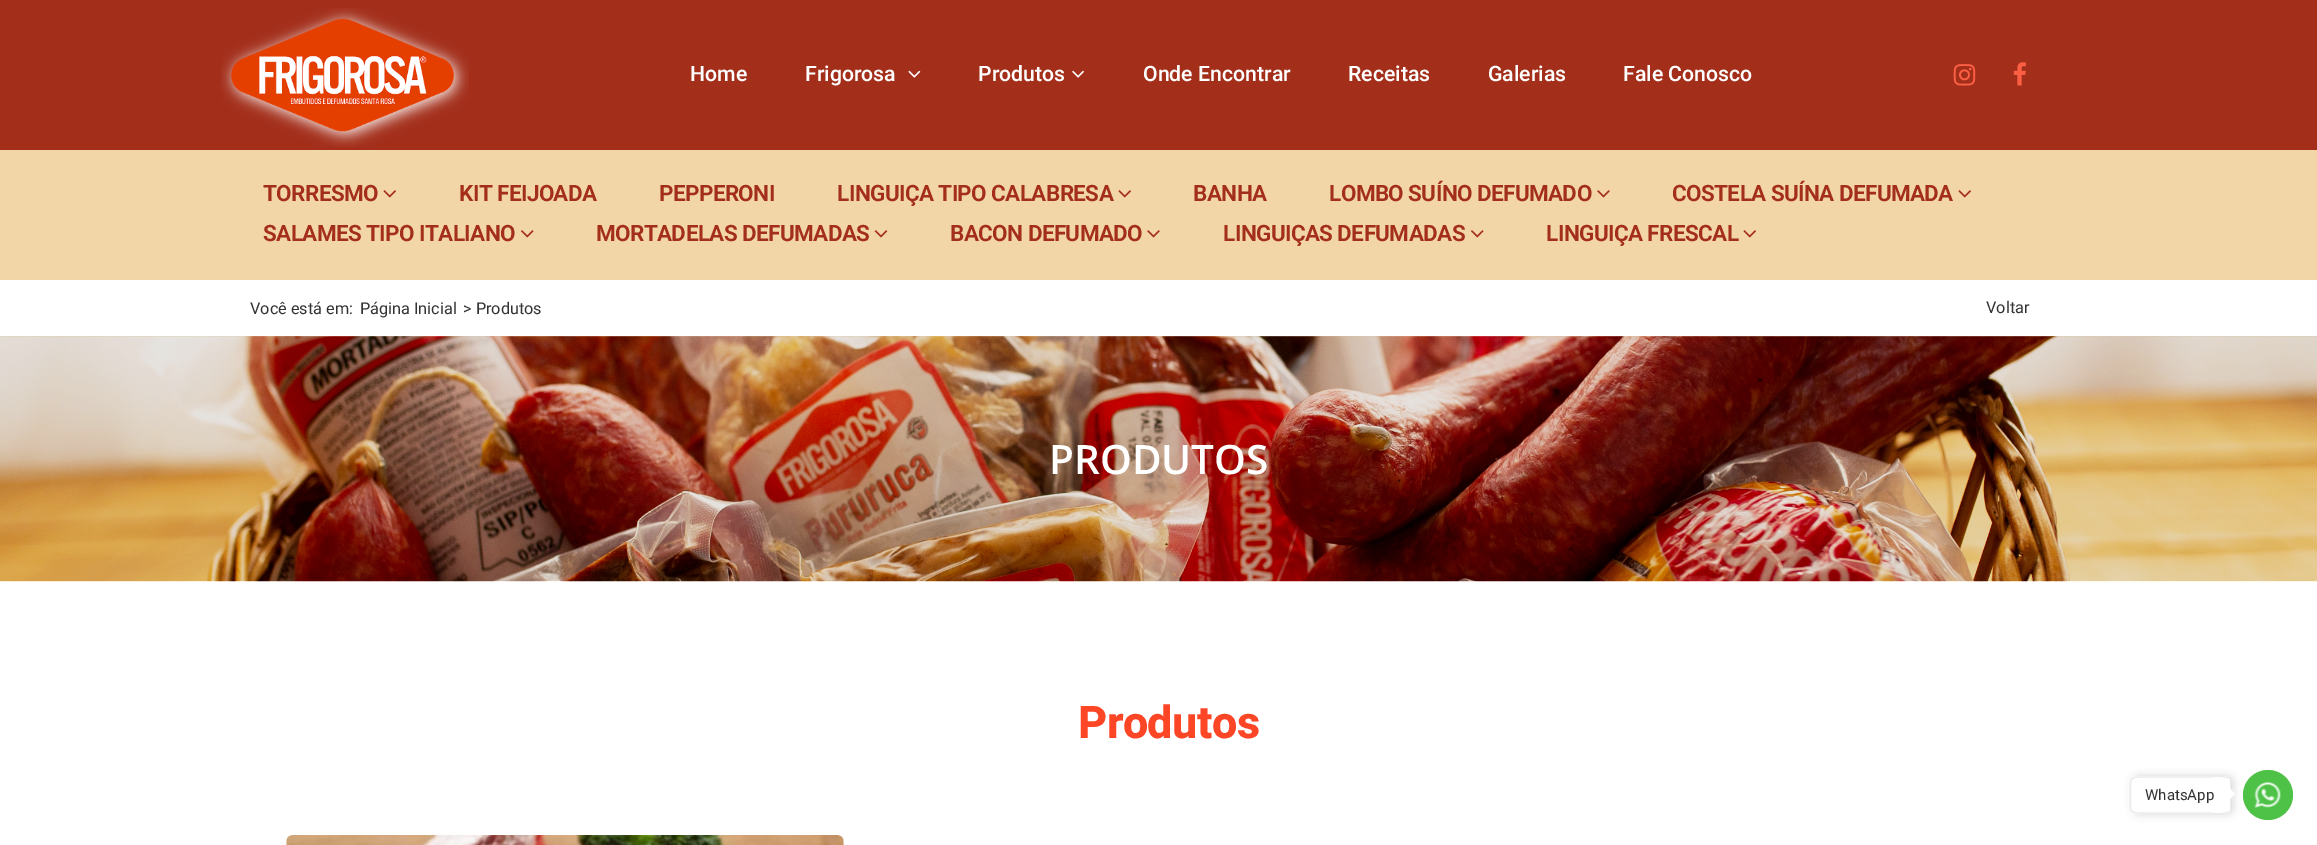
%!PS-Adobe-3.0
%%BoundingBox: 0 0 2317 845
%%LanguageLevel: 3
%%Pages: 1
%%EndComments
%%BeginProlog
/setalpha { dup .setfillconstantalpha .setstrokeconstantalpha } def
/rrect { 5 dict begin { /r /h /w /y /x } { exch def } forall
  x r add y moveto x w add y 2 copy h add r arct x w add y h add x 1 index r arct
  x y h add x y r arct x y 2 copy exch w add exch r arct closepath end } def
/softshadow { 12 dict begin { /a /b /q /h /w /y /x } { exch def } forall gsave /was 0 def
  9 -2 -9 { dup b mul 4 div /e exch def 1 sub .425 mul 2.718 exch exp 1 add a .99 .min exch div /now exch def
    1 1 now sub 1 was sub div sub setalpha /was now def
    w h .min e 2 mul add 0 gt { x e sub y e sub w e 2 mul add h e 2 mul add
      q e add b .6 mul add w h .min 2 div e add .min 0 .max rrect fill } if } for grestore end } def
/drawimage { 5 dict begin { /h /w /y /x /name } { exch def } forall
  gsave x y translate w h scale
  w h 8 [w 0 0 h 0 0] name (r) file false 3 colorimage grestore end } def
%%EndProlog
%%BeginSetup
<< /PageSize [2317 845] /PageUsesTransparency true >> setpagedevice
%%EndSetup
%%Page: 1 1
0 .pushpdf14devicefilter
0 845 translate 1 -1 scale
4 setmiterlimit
1 setgray
0 0 2317 845 rectfill
0.639 0.184 0.106 setrgbcolor
0 0 2317 150 rectfill
(images/1.raw) 221 8 248 139 drawimage
(images/2.raw) 908 70 13 8 drawimage
(images/3.raw) 1072 70 12 8 drawimage
(images/4.raw) 1953 64 23 22 drawimage
(images/5.raw) 2013 62 13 24 drawimage
0.953 0.839 0.659 setrgbcolor
0 150 2317 130 rectfill
(images/6.raw) 383 190 13 8 drawimage
(images/6.raw) 1118 190 13 8 drawimage
(images/7.raw) 1597 190 13 8 drawimage
(images/6.raw) 1958 190 13 8 drawimage
(images/8.raw) 521 230 13 8 drawimage
(images/9.raw) 874 230 14 8 drawimage
(images/7.raw) 1147 230 13 8 drawimage
(images/8.raw) 1471 230 13 8 drawimage
(images/6.raw) 1743 230 13 8 drawimage
(images/10.raw) 0 336 2317 246 drawimage
(images/11.raw) 286 835 558 10 drawimage
0.302 0.761 0.278 setrgbcolor
newpath 2268 795 25 0 360 arc closepath fill
(images/12.raw) 2254 782 27 26 drawimage
0 setgray
2133 776 100 38 6 4.5 0.15 softshadow
1 setgray
2130 776 100 38 6 rrect fill
1.2 setlinewidth
newpath 2227.5 778.5 moveto 2229 779.5 2229.5 781 2229.5 782.5 curveto 2229.5 807.5 lineto 2229.5 809 2229 810.5 2227.5 811.5 curveto stroke
0.922 setgray
newpath 2227.5 811.5 moveto 2224 815.5 2210 813 2209 813 curveto 2151 813 lineto 2129 813 2130.5 815.5 2130.5 795 curveto 2130.5 774.5 2129 777 2151 777 curveto 2209 777 lineto 2210 777 2224 774.5 2227.5 778.5 curveto stroke
1 setgray
newpath 2229 800 moveto 2229 787.5 lineto 2235 794 lineto closepath fill
/Heebo-Medium [21.25 0 0 -21.25 0 0] selectfont
690 81 moveto (Home) show
805 81 moveto (Frigorosa) show
978 81 moveto (Produtos) show
1143 81 moveto (Onde Encontrar) show
1348 81 moveto (Receitas) show
1488 81 moveto (Galerias) show
1623 81 moveto (Fale Conosco) show
/Heebo-SemiBold [22.5 0 0 -22.5 0 0] selectfont
0.639 0.184 0.106 setrgbcolor
263 201 moveto -0.6 0 (TORRESMO) ashow
459 201 moveto -0.6 0 (KIT FEIJOADA) ashow
659 201 moveto -0.6 0 (PEPPERONI) ashow
837 201 moveto -0.6 0 (LINGUIÇA TIPO CALABRESA) ashow
1193 201 moveto -0.6 0 (BANHA) ashow
1329 201 moveto -0.6 0 (LOMBO SUÍNO DEFUMADO) ashow
1672 201 moveto -0.6 0 (COSTELA SUÍNA DEFUMADA) ashow
263 241 moveto -0.6 0 (SALAMES TIPO ITALIANO) ashow
596 241 moveto -0.6 0 (MORTADELAS DEFUMADAS) ashow
950 241 moveto -0.6 0 (BACON DEFUMADO) ashow
1223 241 moveto -0.6 0 (LINGUIÇAS DEFUMADAS) ashow
1546 241 moveto -0.6 0 (LINGUIÇA FRESCAL) ashow
/Heebo-Regular [16.25 0 0 -16.25 0 0] selectfont
0.2 setgray
250 314 moveto (Você está em:) show
360 314 moveto (Página Inicial) show
463 314 moveto (> Produtos) show
1986 313 moveto (Voltar) show
/OpenSans-SemiBold [40.5 0 0 -40.5 0 0] selectfont
1 setgray
1049 474 moveto (PRODUTOS) show
/Heebo-ExtraBold [45 0 0 -45 0 0] selectfont
0.992 0.275 0.149 setrgbcolor
1078 738 moveto -0.6 0 (Produtos) ashow
/Heebo-Regular [15 0 0 -15 0 0] selectfont
0.2 setgray
2145 800 moveto (WhatsApp) show
.poppdf14devicefilter showpage
%%EOF
